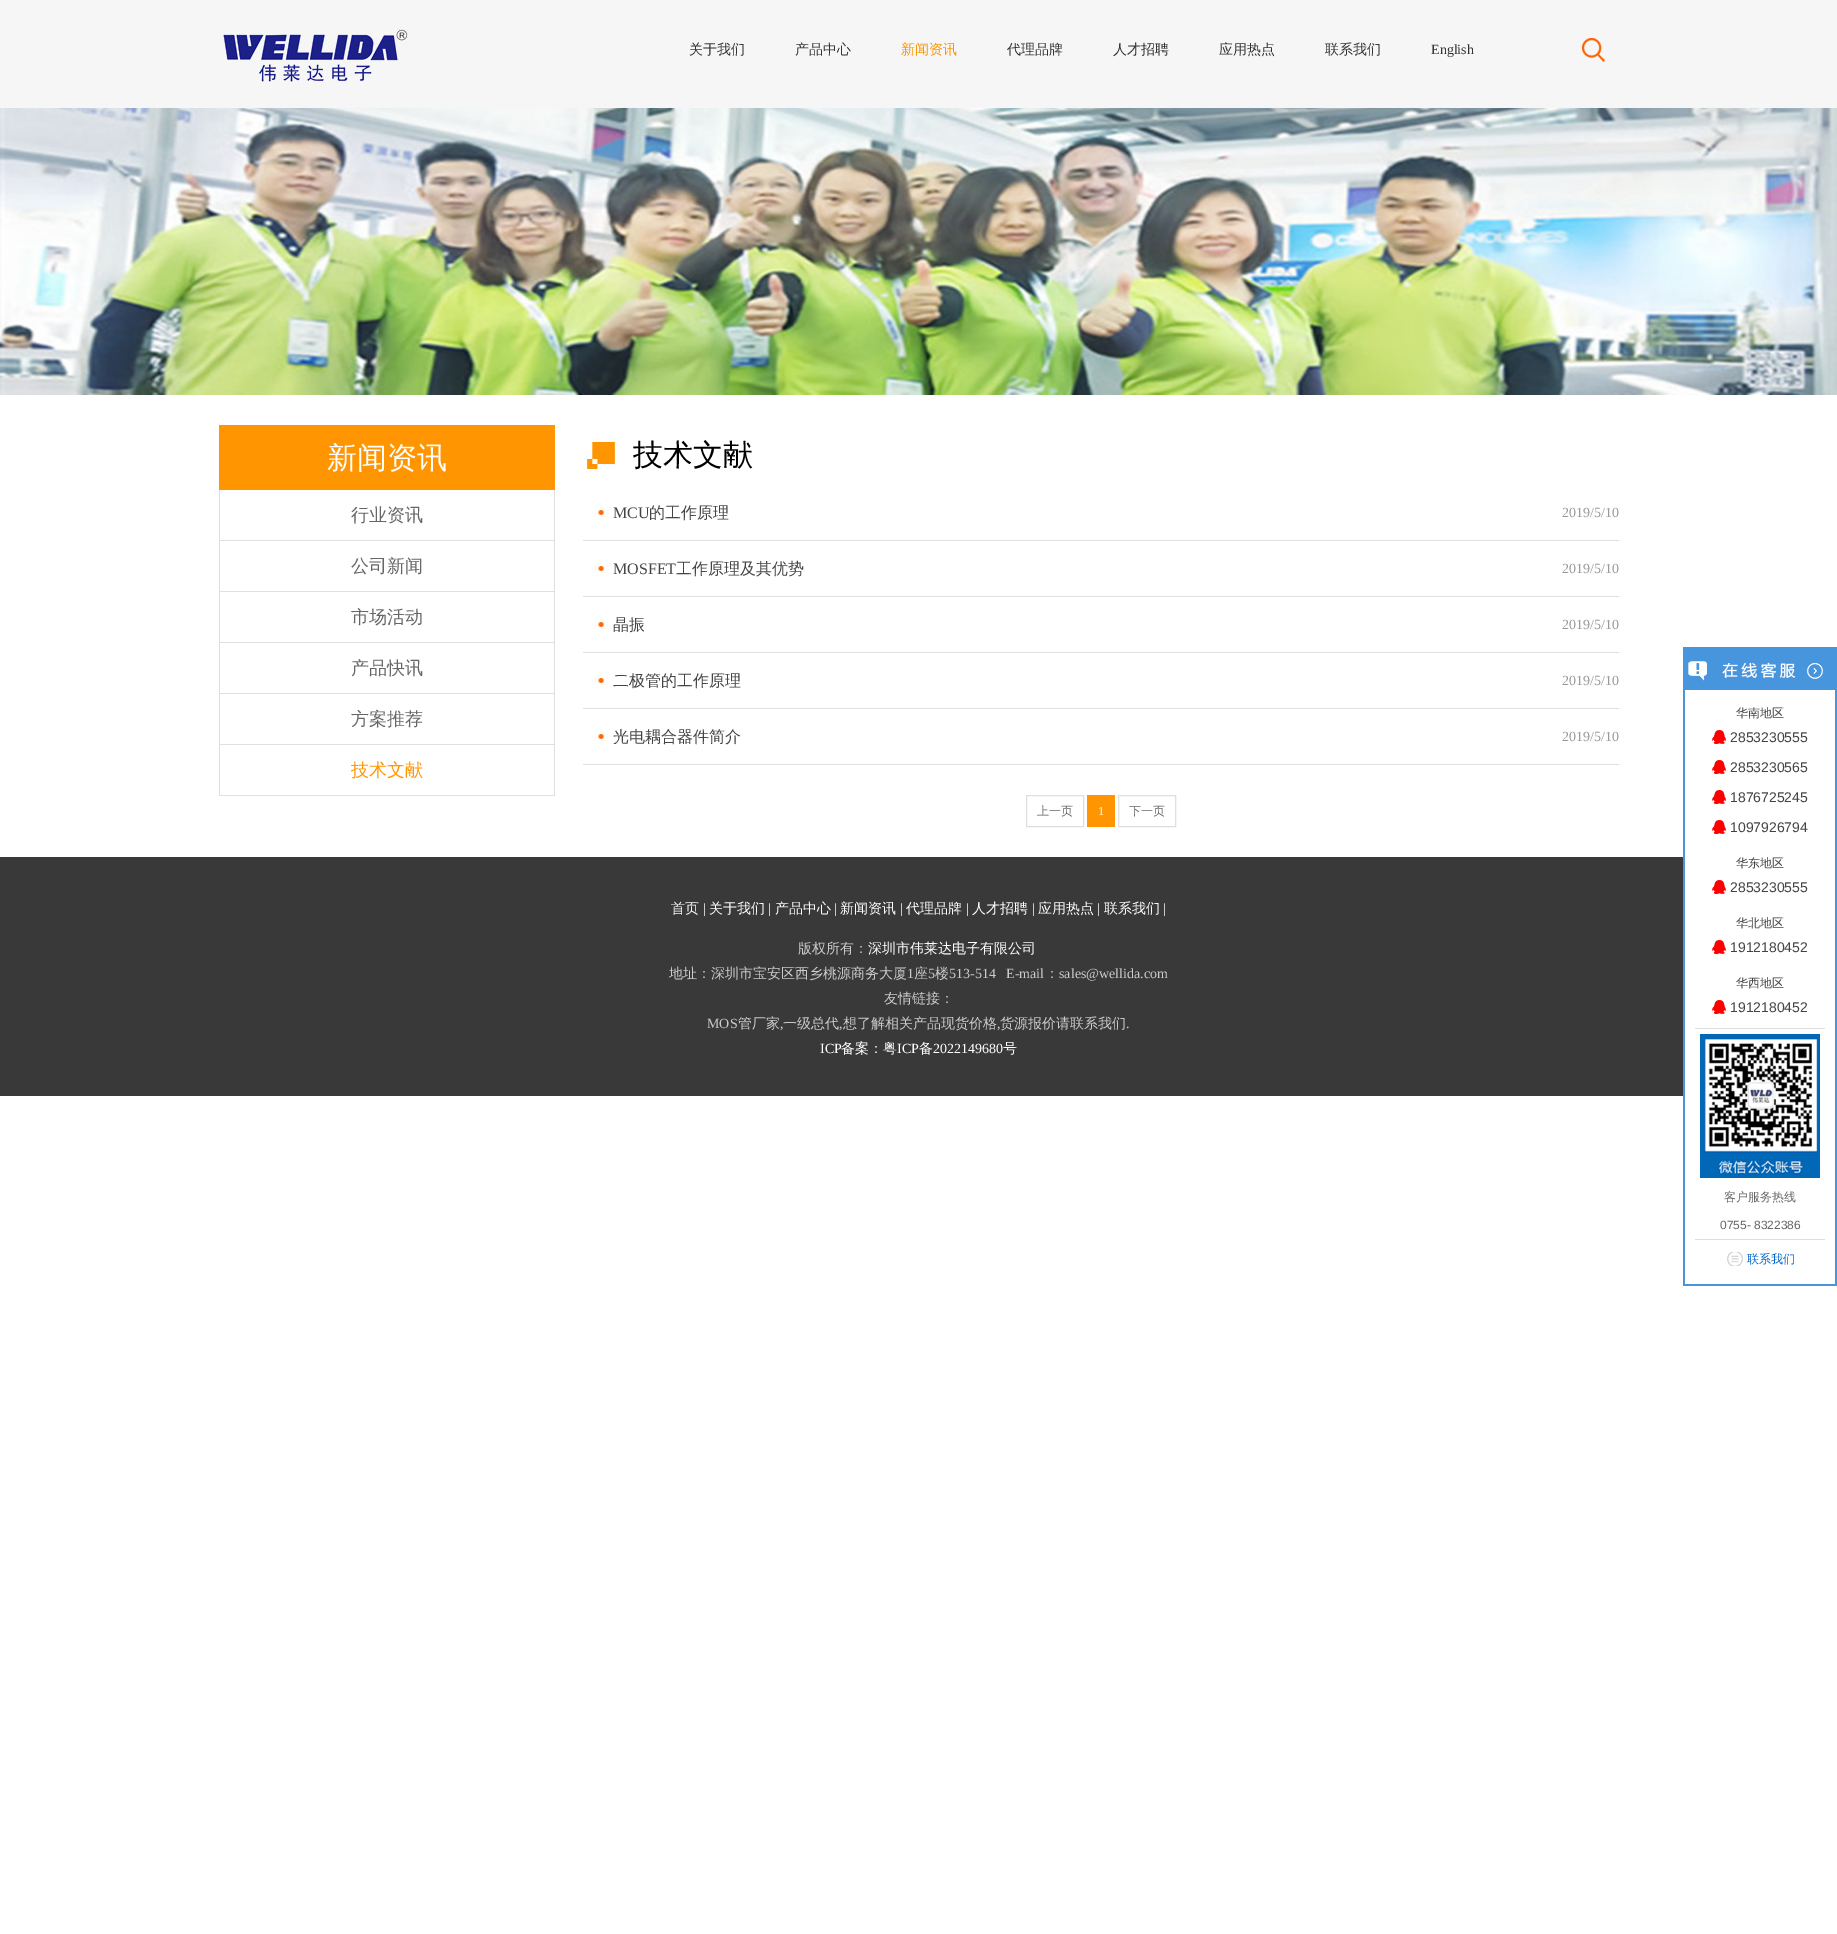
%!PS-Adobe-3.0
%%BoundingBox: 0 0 1837 1934
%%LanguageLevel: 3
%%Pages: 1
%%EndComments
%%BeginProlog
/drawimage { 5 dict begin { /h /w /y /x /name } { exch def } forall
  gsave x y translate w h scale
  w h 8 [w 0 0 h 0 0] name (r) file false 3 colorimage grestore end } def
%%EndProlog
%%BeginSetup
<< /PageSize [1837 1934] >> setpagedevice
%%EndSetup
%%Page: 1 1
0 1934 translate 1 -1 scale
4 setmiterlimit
1 setgray
0 0 1837 1934 rectfill
0.965 setgray
0 0 1837 108 rectfill
(images/1.raw) 219 25 190 63 drawimage
(images/2.raw) 1582 38 23 24 drawimage
(images/3.raw) 0 108 1837 287 drawimage
1 0.584 0 setrgbcolor
219 425 336 65 rectfill
0.875 setgray
554 490 1 306 rectfill
219 540 336 1 rectfill
219 490 1 51 rectfill
219 591 336 1 rectfill
219 541 1 51 rectfill
219 642 336 1 rectfill
219 592 1 51 rectfill
219 693 336 1 rectfill
219 643 1 51 rectfill
219 744 336 1 rectfill
219 694 1 51 rectfill
219 795 336 1 rectfill
219 745 1 51 rectfill
(images/4.raw) 583 437 33 32 drawimage
583 540 1036 1 rectfill
(images/5.raw) 591 509 17 8 drawimage
583 596 1036 1 rectfill
(images/5.raw) 591 565 17 8 drawimage
583 652 1036 1 rectfill
(images/5.raw) 591 621 17 8 drawimage
583 708 1036 1 rectfill
(images/5.raw) 591 677 17 8 drawimage
583 764 1036 1 rectfill
(images/5.raw) 591 733 17 8 drawimage
1026.5 795.5 57 31 rectstroke
1 0.584 0 setrgbcolor
1087 795 28 32 rectfill
0.875 setgray
1118.5 795.5 57 31 rectstroke
0.224 setgray
0 857 1683 239 rectfill
(images/6.raw) 1683 647 154 46 drawimage
(images/7.raw) 1807 663 16 16 drawimage
(images/8.raw) 1683 693 154 585 drawimage
(images/9.raw) 1712 730 14 14 drawimage
(images/9.raw) 1712 760 14 14 drawimage
(images/9.raw) 1712 790 14 14 drawimage
(images/9.raw) 1712 820 14 14 drawimage
(images/9.raw) 1712 880 14 14 drawimage
(images/9.raw) 1712 940 14 14 drawimage
(images/9.raw) 1712 1000 14 14 drawimage
0.867 setgray
1695 1028 130 1 rectfill
1695 1239 130 1 rectfill
(images/10.raw) 1700 1034 120 144 drawimage
(images/11.raw) 1727 1252 16 14 drawimage
(images/12.raw) 1683 1278 154 8 drawimage
/WenQuanYiZenHei-Medium [14 0 0 -14 0 0] selectfont
0.2 setgray
689 54 moveto (关于我们) show
795 54 moveto (产品中心) show
1 0.584 0 setrgbcolor
901 54 moveto (新闻资讯) show
0.2 setgray
1007 54 moveto (代理品牌) show
1113 54 moveto (人才招聘) show
1219 54 moveto (应用热点) show
1325 54 moveto (联系我们) show
/LiberationSerif-Regular [14 0 0 -14 0 0] selectfont
1431 54 moveto (English) show
/WenQuanYiZenHei-Medium [30 0 0 -30 0 0] selectfont
1 setgray
327 468 moveto (新闻资讯) show
/WenQuanYiZenHei-Medium [18 0 0 -18 0 0] selectfont
0.4 setgray
351 521 moveto (行业资讯) show
351 572 moveto (公司新闻) show
351 623 moveto (市场活动) show
351 674 moveto (产品快讯) show
351 725 moveto (方案推荐) show
1 0.584 0 setrgbcolor
351 776 moveto (技术文献) show
/WenQuanYiZenHei-Medium [30 0 0 -30 0 0] selectfont
0 setgray
633 465 moveto (技术文献) show
/LiberationSerif-Regular [16 0 0 -16 0 0] selectfont
0.267 setgray
613 518 moveto (MCU) show
/WenQuanYiZenHei-Medium [16 0 0 -16 0 0] selectfont
649 518 moveto (的工作原理) show
/LiberationSerif-Regular [14 0 0 -14 0 0] selectfont
0.6 setgray
1562 517 moveto (2019/5/10) show
/LiberationSerif-Regular [16 0 0 -16 0 0] selectfont
0.267 setgray
613 574 moveto (MOSFET) show
/WenQuanYiZenHei-Medium [16 0 0 -16 0 0] selectfont
676 574 moveto (工作原理及其优势) show
/LiberationSerif-Regular [14 0 0 -14 0 0] selectfont
0.6 setgray
1562 573 moveto (2019/5/10) show
/WenQuanYiZenHei-Medium [16 0 0 -16 0 0] selectfont
0.267 setgray
613 630 moveto (晶振) show
/LiberationSerif-Regular [14 0 0 -14 0 0] selectfont
0.6 setgray
1562 629 moveto (2019/5/10) show
/WenQuanYiZenHei-Medium [16 0 0 -16 0 0] selectfont
0.267 setgray
613 686 moveto (二极管的工作原理) show
/LiberationSerif-Regular [14 0 0 -14 0 0] selectfont
0.6 setgray
1562 685 moveto (2019/5/10) show
/WenQuanYiZenHei-Medium [16 0 0 -16 0 0] selectfont
0.267 setgray
613 742 moveto (光电耦合器件简介) show
/LiberationSerif-Regular [14 0 0 -14 0 0] selectfont
0.6 setgray
1562 741 moveto (2019/5/10) show
/WenQuanYiZenHei-Medium [12 0 0 -12 0 0] selectfont
0.4 setgray
1037 815 moveto (上一页) show
/LiberationSerif-Regular [12 0 0 -12 0 0] selectfont
1 setgray
1098 815 moveto (1) show
/WenQuanYiZenHei-Medium [12 0 0 -12 0 0] selectfont
0.4 setgray
1129 815 moveto (下一页) show
/WenQuanYiZenHei-Medium [14 0 0 -14 0 0] selectfont
1 setgray
671 913 moveto (首页) show
/LiberationSerif-Regular [14 0 0 -14 0 0] selectfont
703 913 moveto (|) show
/WenQuanYiZenHei-Medium [14 0 0 -14 0 0] selectfont
709 913 moveto (关于我们) show
/LiberationSerif-Regular [14 0 0 -14 0 0] selectfont
768 913 moveto (|) show
/WenQuanYiZenHei-Medium [14 0 0 -14 0 0] selectfont
775 913 moveto (产品中心) show
/LiberationSerif-Regular [14 0 0 -14 0 0] selectfont
834 913 moveto (|) show
/WenQuanYiZenHei-Medium [14 0 0 -14 0 0] selectfont
840 913 moveto (新闻资讯) show
/LiberationSerif-Regular [14 0 0 -14 0 0] selectfont
900 913 moveto (|) show
/WenQuanYiZenHei-Medium [14 0 0 -14 0 0] selectfont
906 913 moveto (代理品牌) show
/LiberationSerif-Regular [14 0 0 -14 0 0] selectfont
966 913 moveto (|) show
/WenQuanYiZenHei-Medium [14 0 0 -14 0 0] selectfont
972 913 moveto (人才招聘) show
/LiberationSerif-Regular [14 0 0 -14 0 0] selectfont
1032 913 moveto (|) show
/WenQuanYiZenHei-Medium [14 0 0 -14 0 0] selectfont
1038 913 moveto (应用热点) show
/LiberationSerif-Regular [14 0 0 -14 0 0] selectfont
1097 913 moveto (|) show
/WenQuanYiZenHei-Medium [14 0 0 -14 0 0] selectfont
1104 913 moveto (联系我们) show
/LiberationSerif-Regular [14 0 0 -14 0 0] selectfont
1163 913 moveto (|) show
/WenQuanYiZenHei-Medium [14 0 0 -14 0 0] selectfont
0.8 setgray
798 953 moveto (版权所有：) show
1 setgray
868 953 moveto (深圳市伟莱达电子有限公司) show
0.8 setgray
669 978 moveto (地址：深圳市宝安区西乡桃源商务大厦) show
/LiberationSerif-Regular [14 0 0 -14 0 0] selectfont
907 978 moveto (1) show
/WenQuanYiZenHei-Medium [14 0 0 -14 0 0] selectfont
914 978 moveto (座) show
/LiberationSerif-Regular [14 0 0 -14 0 0] selectfont
928 978 moveto (5) show
/WenQuanYiZenHei-Medium [14 0 0 -14 0 0] selectfont
935 978 moveto (楼) show
/LiberationSerif-Regular [14 0 0 -14 0 0] selectfont
949 978 moveto (513-514   E-mail) show
/WenQuanYiZenHei-Medium [14 0 0 -14 0 0] selectfont
1045 978 moveto (：) show
/LiberationSerif-Regular [14 0 0 -14 0 0] selectfont
1059 978 moveto (sales@wellida.com) show
/WenQuanYiZenHei-Medium [14 0 0 -14 0 0] selectfont
884 1003 moveto (友情链接：) show
/LiberationSerif-Regular [14 0 0 -14 0 0] selectfont
707 1028 moveto (MOS) show
/WenQuanYiZenHei-Medium [14 0 0 -14 0 0] selectfont
738 1028 moveto (管厂家) show
/LiberationSerif-Regular [14 0 0 -14 0 0] selectfont
780 1028 moveto (,) show
/WenQuanYiZenHei-Medium [14 0 0 -14 0 0] selectfont
783 1028 moveto (一级总代) show
/LiberationSerif-Regular [14 0 0 -14 0 0] selectfont
839 1028 moveto (,) show
/WenQuanYiZenHei-Medium [14 0 0 -14 0 0] selectfont
843 1028 moveto (想了解相关产品现货价格) show
/LiberationSerif-Regular [14 0 0 -14 0 0] selectfont
997 1028 moveto (,) show
/WenQuanYiZenHei-Medium [14 0 0 -14 0 0] selectfont
1000 1028 moveto (货源报价请联系我们) show
/LiberationSerif-Regular [14 0 0 -14 0 0] selectfont
1126 1028 moveto (.) show
1 setgray
820 1053 moveto (ICP) show
/WenQuanYiZenHei-Medium [14 0 0 -14 0 0] selectfont
841 1053 moveto (备案：粤) show
/LiberationSerif-Regular [14 0 0 -14 0 0] selectfont
897 1053 moveto (ICP) show
/WenQuanYiZenHei-Medium [14 0 0 -14 0 0] selectfont
919 1053 moveto (备) show
/LiberationSerif-Regular [14 0 0 -14 0 0] selectfont
933 1053 moveto (2022149680) show
/WenQuanYiZenHei-Medium [14 0 0 -14 0 0] selectfont
1003 1053 moveto (号) show
/WenQuanYiZenHei-Medium [12 0 0 -12 0 0] selectfont
0.267 setgray
1736 717 moveto (华南地区) show
/LiberationSans-Regular [14 0 0 -14 0 0] selectfont
1730 742 moveto (2853230555) show
1730 772 moveto (2853230565) show
1730 802 moveto (1876725245) show
1730 832 moveto (1097926794) show
/WenQuanYiZenHei-Medium [12 0 0 -12 0 0] selectfont
1736 867 moveto (华东地区) show
/LiberationSans-Regular [14 0 0 -14 0 0] selectfont
1730 892 moveto (2853230555) show
/WenQuanYiZenHei-Medium [12 0 0 -12 0 0] selectfont
1736 927 moveto (华北地区) show
/LiberationSans-Regular [14 0 0 -14 0 0] selectfont
1730 952 moveto (1912180452) show
/WenQuanYiZenHei-Medium [12 0 0 -12 0 0] selectfont
1736 987 moveto (华西地区) show
/LiberationSans-Regular [14 0 0 -14 0 0] selectfont
1730 1012 moveto (1912180452) show
/WenQuanYiZenHei-Medium [12 0 0 -12 0 0] selectfont
0.4 setgray
1724 1201 moveto (客户服务热线) show
/LiberationSans-Regular [12 0 0 -12 0 0] selectfont
1720 1229 moveto (0755- 8322386) show
/WenQuanYiZenHei-Medium [12 0 0 -12 0 0] selectfont
0 0.4 0.8 setrgbcolor
1747 1263 moveto (联系我们) show
showpage
%%EOF
